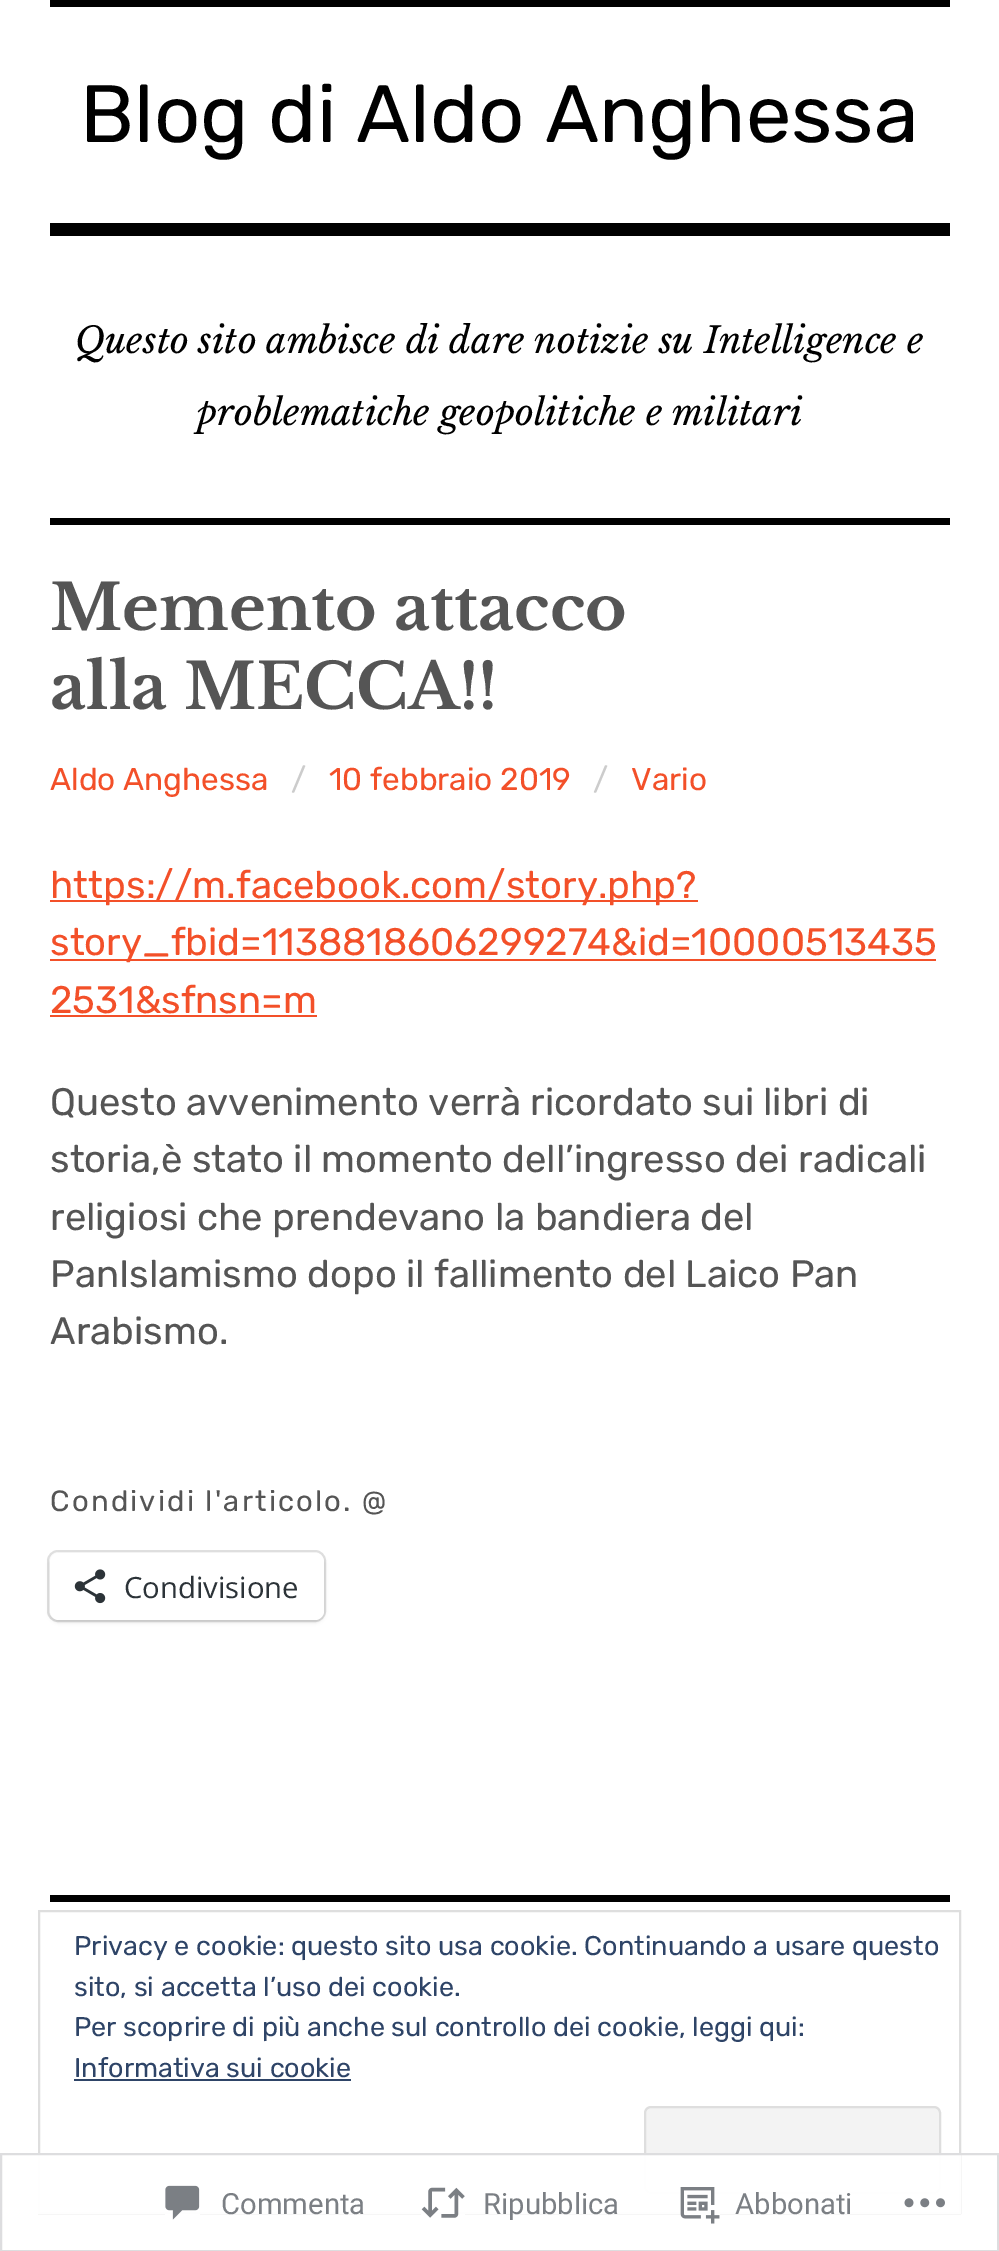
%!PS-Adobe-3.0
%%BoundingBox: 0 0 999 2251
%%LanguageLevel: 3
%%Pages: 1
%%EndComments
%%BeginProlog
/setalpha { dup .setfillconstantalpha .setstrokeconstantalpha } def
/rrect { 5 dict begin { /r /h /w /y /x } { exch def } forall
  x r add y moveto x w add y 2 copy h add r arct x w add y h add x 1 index r arct
  x y h add x y r arct x y 2 copy exch w add exch r arct closepath end } def
/softshadow { 12 dict begin { /a /b /q /h /w /y /x } { exch def } forall gsave /was 0 def
  9 -2 -9 { dup b mul 4 div /e exch def 1 sub .425 mul 2.718 exch exp 1 add a .99 .min exch div /now exch def
    1 1 now sub 1 was sub div sub setalpha /was now def
    w h .min e 2 mul add 0 gt { x e sub y e sub w e 2 mul add h e 2 mul add
      q e add b .6 mul add w h .min 2 div e add .min 0 .max rrect fill } if } for grestore end } def
/drawimage { 5 dict begin { /h /w /y /x /name } { exch def } forall
  gsave x y translate w h scale
  w h 8 [w 0 0 h 0 0] name (r) file false 3 colorimage grestore end } def
%%EndProlog
%%BeginSetup
<< /PageSize [999 2251] /PageUsesTransparency true >> setpagedevice
%%EndSetup
%%Page: 1 1
0 .pushpdf14devicefilter
0 2251 translate 1 -1 scale
4 setmiterlimit
1 setgray
0 0 999 2251 rectfill
0 setgray
50 0 900 7 rectfill
50 223 900 13 rectfill
50 518 900 7 rectfill
0.953 0.314 0.161 setrgbcolor
50 900 648 2 rectfill
50 959 886 2 rectfill
50 1015 267 2 rectfill
0.878 setgray
2 setlinewidth
48 1551 277 70 10 rrect stroke
0 setgray
50 1555 274 67 9 2 0.12 softshadow
1 setgray
50 1553 274 67 9 rrect fill
(images/1.raw) 74 1569 32 35 drawimage
0 setgray
50 1895 900 7 rectfill
0.871 setgray
39 1911 921 302 rectstroke
0.18 0.267 0.404 setrgbcolor
74 2079 277 2 rectfill
0.953 setgray
645 2107 295 86 6 rrect gsave fill grestore
0.871 setgray
stroke
0.98 setalpha
1 setgray
38 2153 923 61 rectfill
0.863 0.863 0.871 setrgbcolor
1 2154 997 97 rectstroke
1 setalpha
(images/2.raw) 165 2185 35 35 drawimage
(images/3.raw) 421 2187 44 31 drawimage
(images/4.raw) 680 2187 40 37 drawimage
(images/5.raw) 904 2198 41 10 drawimage
/Rubik-Regular [81 0 0 -81 0 0] selectfont
0 setgray
80 142 moveto (Blog di Aldo Anghessa) show
/LibreBaskerville-Italic [36 0 0 -36 0 0] selectfont
75 353 moveto (Questo sito ambisce di dare notizie su Intelligence e) show
197 425 moveto (problematiche geopolitiche e militari) show
/LibreBaskerville-Bold [63 0 0 -63 0 0] selectfont
0.333 setgray
50 630 moveto (Memento attacco) show
50 709 moveto (alla MECCA!!) show
/Rubik-Regular [31.5 0 0 -31.5 0 0] selectfont
0.953 0.314 0.161 setrgbcolor
50 790 moveto (Aldo Anghessa) show
0.8 setgray
291 790 moveto (/) show
0.953 0.314 0.161 setrgbcolor
329 790 moveto (10 febbraio 2019) show
0.8 setgray
593 790 moveto (/) show
0.953 0.314 0.161 setrgbcolor
631 790 moveto (Vario) show
/Rubik-Regular [38.25 0 0 -38.25 0 0] selectfont
50 898 moveto (https://m.facebook.com/story.php?) show
50 955 moveto (story_fbid=1138818606299274&id=10000513435) show
50 1013 moveto (2531&sfnsn=m) show
0.333 setgray
50 1115 moveto (Questo avvenimento verrà ricordato sui libri di) show
50 1172 moveto (storia,è stato il momento dell’ingresso dei radicali) show
50 1230 moveto (religiosi che prendevano la bandiera del) show
50 1287 moveto (PanIslamismo dopo il fallimento del Laico Pan) show
50 1344 moveto (Arabismo.) show
/Rubik-Regular [29.25 0 0 -29.25 0 0] selectfont
50 1511 moveto 2.2 0 (Condividi l'articolo. @) ashow
/OpenSans-Regular [29.25 0 0 -29.25 0 0] selectfont
0.173 0.2 0.22 setrgbcolor
124 1598 moveto (Condivisione) show
/Rubik-Regular [27 0 0 -27 0 0] selectfont
0.18 0.267 0.404 setrgbcolor
74 1955 moveto (Privacy e cookie: questo sito usa cookie. Continuando a usare questo) show
74 1996 moveto (sito, si accetta l’uso dei cookie.) show
74 2036 moveto (Per scoprire di più anche sul controllo dei cookie, leggi qui:) show
74 2077 moveto (Informativa sui cookie) show
/Roboto-Regular [29.25 0 0 -29.25 0 0] selectfont
0.482 0.498 0.518 setrgbcolor
221 2214 moveto (Commenta) show
483 2214 moveto (Ripubblica) show
735 2214 moveto (Abbonati) show
.poppdf14devicefilter showpage
%%EOF
